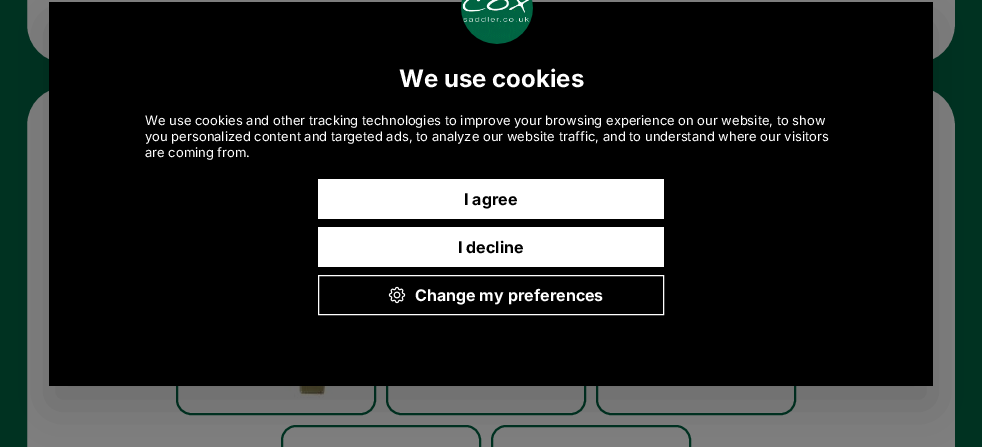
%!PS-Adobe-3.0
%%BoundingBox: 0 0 982 447
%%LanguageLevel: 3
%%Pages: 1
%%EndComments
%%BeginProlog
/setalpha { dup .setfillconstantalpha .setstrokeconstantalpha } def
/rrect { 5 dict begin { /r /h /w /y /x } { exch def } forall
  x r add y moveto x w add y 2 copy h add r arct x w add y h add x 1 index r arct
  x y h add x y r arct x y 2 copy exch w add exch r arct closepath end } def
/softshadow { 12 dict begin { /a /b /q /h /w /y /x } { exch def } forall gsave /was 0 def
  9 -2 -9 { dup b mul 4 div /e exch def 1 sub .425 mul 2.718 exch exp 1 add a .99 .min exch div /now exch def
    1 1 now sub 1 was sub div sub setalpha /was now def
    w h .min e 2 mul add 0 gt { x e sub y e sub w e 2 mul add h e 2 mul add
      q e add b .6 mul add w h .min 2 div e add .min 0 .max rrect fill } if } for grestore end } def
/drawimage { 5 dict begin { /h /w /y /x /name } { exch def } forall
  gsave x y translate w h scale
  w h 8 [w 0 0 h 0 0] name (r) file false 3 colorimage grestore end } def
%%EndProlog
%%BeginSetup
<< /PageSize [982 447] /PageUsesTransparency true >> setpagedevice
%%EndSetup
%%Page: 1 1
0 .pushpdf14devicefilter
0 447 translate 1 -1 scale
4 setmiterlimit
0 0.196 0.129 setrgbcolor
0 0 982 447 rectfill
0.502 setgray
26 -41 930 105 39 rrect gsave fill grestore
0 0.196 0.129 setrgbcolor
2 setlinewidth
stroke
0.502 setgray
26 86 930 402 39 rrect gsave fill grestore
0 0.196 0.129 setrgbcolor
stroke
177 192 198 222 14 rrect stroke
(images/1.raw) 269 386 90 12 drawimage
387 192 198 222 14 rrect stroke
597 192 198 222 14 rrect stroke
282 426 198 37 14 rrect stroke
492 426 198 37 14 rrect stroke
0 setgray
49 22 884 384 0 25 0.16 softshadow
49 2 884 384 rectfill
(images/2.raw) 461 0 72 44 drawimage
1 setgray
318 179 346 40 rectfill
318 227 346 40 rectfill
1 setlinewidth
318.5 275.5 345 39 rectstroke
(images/3.raw) 388 286 18 18 drawimage
/Inter-Bold [24 0 0 -24 0 0] selectfont
399 87 moveto (We use cookies) show
/Inter-Regular [13 0 0 -13 0 0] selectfont
145 125 moveto (We use cookies and other tracking technologies to improve your browsing experience on our website, to show) show
145 141 moveto (you personalized content and targeted ads, to analyze our website traffic, and to understand where our visitors) show
145 157 moveto (are coming from.) show
/Inter-Bold [16 0 0 -16 0 0] selectfont
0 setgray
464 205 moveto (I agree) show
458 253 moveto (I decline) show
1 setgray
415 301 moveto (Change my preferences) show
.poppdf14devicefilter showpage
%%EOF
